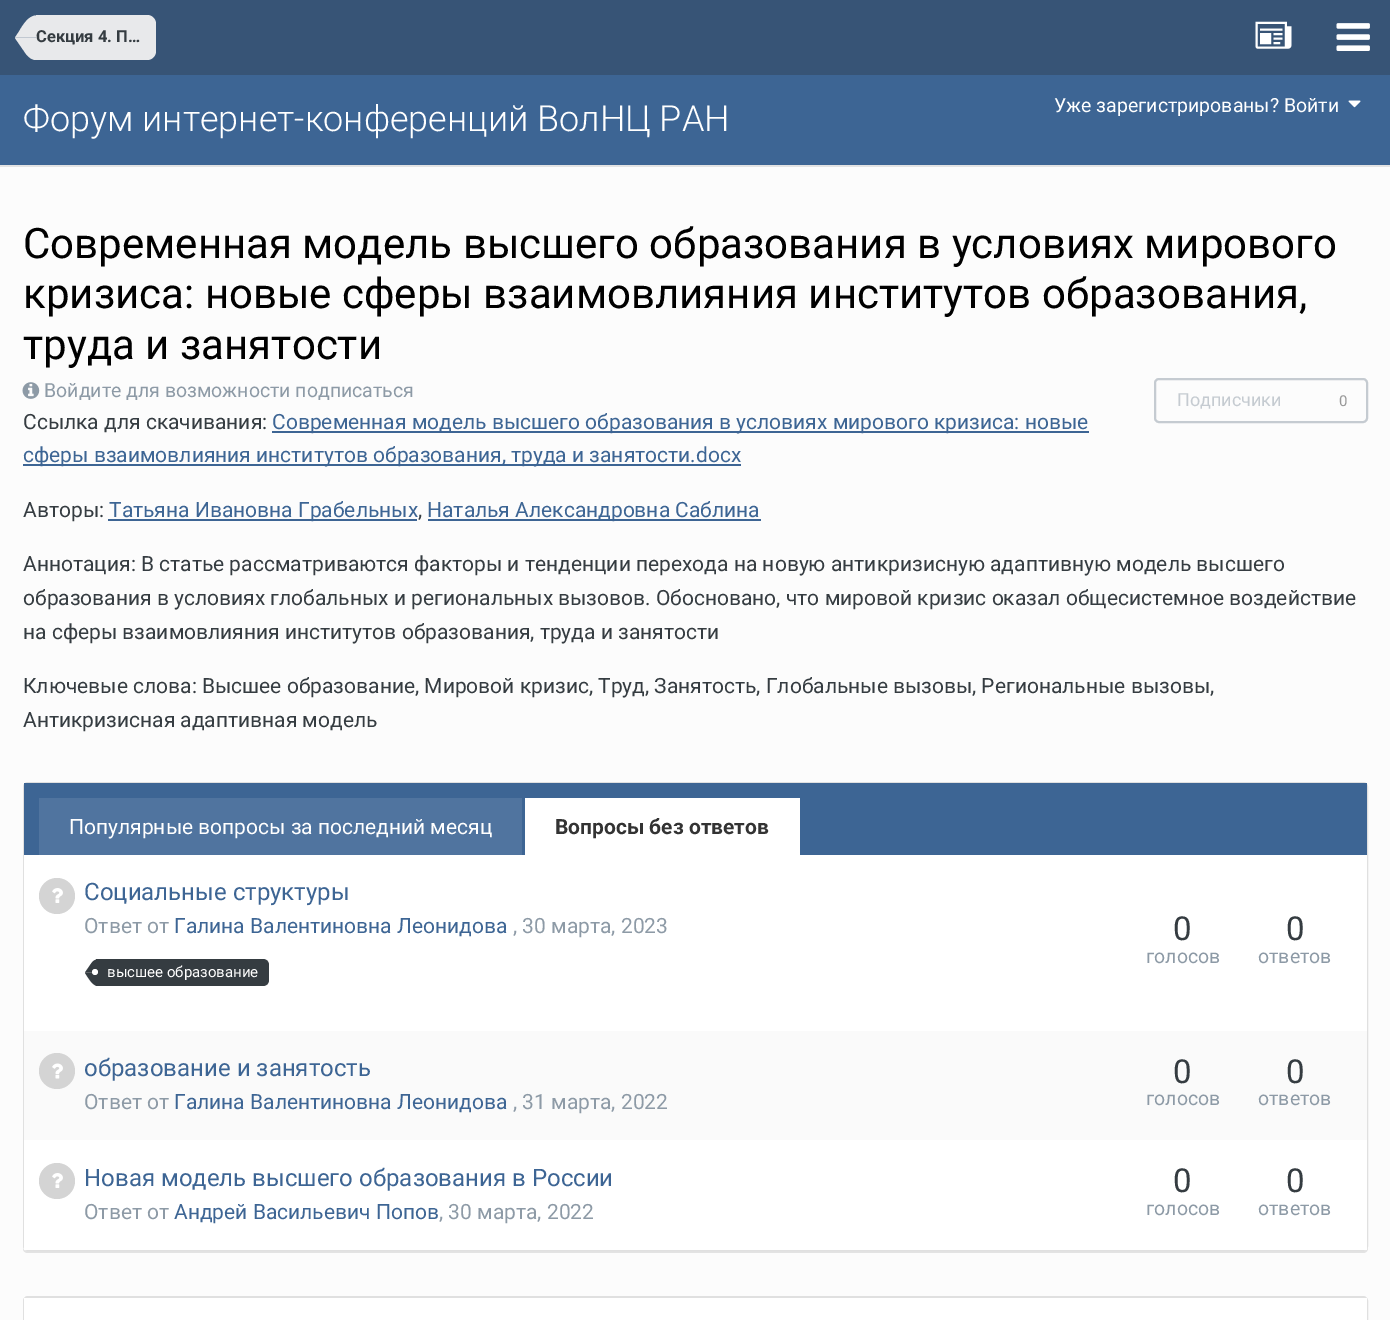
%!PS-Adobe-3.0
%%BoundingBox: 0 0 1390 1320
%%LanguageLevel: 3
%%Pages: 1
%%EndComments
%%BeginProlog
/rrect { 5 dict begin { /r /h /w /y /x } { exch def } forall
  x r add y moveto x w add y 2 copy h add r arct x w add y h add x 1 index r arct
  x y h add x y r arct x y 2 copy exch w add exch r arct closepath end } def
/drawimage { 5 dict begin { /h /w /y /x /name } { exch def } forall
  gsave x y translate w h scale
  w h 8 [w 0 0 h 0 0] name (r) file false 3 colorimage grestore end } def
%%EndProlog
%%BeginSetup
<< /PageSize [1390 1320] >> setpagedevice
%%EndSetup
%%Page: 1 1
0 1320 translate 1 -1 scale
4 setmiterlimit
0.988 setgray
0 0 1390 1320 rectfill
0.89 setgray
0 165 1390 2 rectfill
0.216 0.329 0.463 setrgbcolor
0 0 1390 75 rectfill
0.91 0.914 0.922 setrgbcolor
newpath 36 15 moveto 147 15 lineto 152 15 156 19 156 24 curveto 156 51 lineto 156 56 152 60 147 60 curveto 36 60 lineto closepath fill
newpath 15 37.5 moveto 36 37.5 lineto 36 60 lineto 33 60 29.5 58.5 26 54 curveto 15 38 lineto closepath fill
newpath 36 15.5 moveto 36 37.5 lineto 15 37.5 lineto 19 31.5 lineto 22.5 25.5 28.5 15.5 36 15.5 curveto closepath fill
(images/1.raw) 1255 21 37 28 drawimage
(images/2.raw) 1336 23 34 28 drawimage
0.239 0.396 0.58 setrgbcolor
0 75 1390 90 rectfill
(images/3.raw) 1348 100 13 8 drawimage
(images/4.raw) 22 382 18 17 drawimage
0.773 0.796 0.82 setrgbcolor
2 setlinewidth
1155 379 212 43 4 rrect stroke
0.239 0.396 0.58 setrgbcolor
272 431 817 2 rectfill
23 464 718 2 rectfill
108 519 309 2 rectfill
428 519 333 2 rectfill
0.89 setgray
newpath 23 1249 moveto 23 1251 25 1253 28 1253 curveto 1363 1253 lineto 1366 1253 1368 1251 1368 1248 curveto 1368 1246 lineto 1368 1249 1366 1251 1364 1251 curveto 27 1251 lineto 25 1251 24 1250 23 1249 curveto closepath fill
0.878 setgray
24 783 1343 467 4 rrect stroke
0.239 0.396 0.58 setrgbcolor
24 783 1343 72 rectfill
0.314 0.455 0.624 setrgbcolor
39 798 483 57 rectfill
1 setgray
525 798 275 57 rectfill
24 855 1343 395 rectfill
0.831 setgray
newpath 57 896 18 0 360 arc closepath fill
(images/5.raw) 52 888 11 15 drawimage
0.208 0.235 0.255 setrgbcolor
newpath 96 959 moveto 263 959 lineto 266.5 959 269 961.5 269 965 curveto 269 980 lineto 269 983.5 266.5 986 263 986 curveto 96 986 lineto closepath fill
newpath 97.5 986 moveto 92.5 986 87.5 976.5 85 973 curveto 85 972.5 lineto 97.5 972.5 lineto 97 973 lineto 97.5 973 lineto closepath fill
newpath 89.5 966 moveto 91.5 963 93.5 959.5 97.5 959.5 curveto 97.5 972.5 lineto 97 972 lineto 97.5 972.5 lineto 85 972.5 lineto closepath fill
1 setgray
newpath 95 972 3 0 360 arc closepath fill
0.98 setgray
24 1031 1343 109 rectfill
0.831 setgray
newpath 57 1071 18 0 360 arc closepath fill
(images/6.raw) 52 1063 11 16 drawimage
newpath 57 1181 18 0 360 arc closepath fill
(images/5.raw) 52 1173 11 15 drawimage
0.878 setgray
24 1297 1343 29 4 rrect stroke
1 setgray
24 1298 1343 22 rectfill
/Roboto-Bold [16.5 0 0 -16.5 0 0] selectfont
0.208 0.235 0.255 setrgbcolor
36 42 moveto (Секция 4. П…) show
/Roboto-Light [36 0 0 -36 0 0] selectfont
1 setgray
23 131 moveto (Форум интернет-конференций ВолНЦ РАН) show
/Roboto-Regular [19.5 0 0 -19.5 0 0] selectfont
1054 112 moveto (Уже зарегистрированы? Войти) show
/Roboto-Regular [42 0 0 -42 0 0] selectfont
0 setgray
23 258 moveto (Современная модель высшего образования в условиях мирового) show
23 308 moveto (кризиса: новые сферы взаимовлияния институтов образования,) show
23 359 moveto (труда и занятости) show
/Roboto-Regular [19.5 0 0 -19.5 0 0] selectfont
0.553 0.604 0.651 setrgbcolor
44 397 moveto (Войдите для возможности подписаться) show
/Roboto-Regular [18 0 0 -18 0 0] selectfont
0.773 0.796 0.82 setrgbcolor
1177 406 moveto (Подписчики) show
/Roboto-Regular [15 0 0 -15 0 0] selectfont
0.596 setgray
1339 406 moveto (0) show
/Roboto-Regular [21 0 0 -21 0 0] selectfont
0.208 0.235 0.255 setrgbcolor
23 429 moveto (Ссылка для скачивания:) show
0.239 0.396 0.58 setrgbcolor
272 429 moveto (Современная модель высшего образования в условиях мирового кризиса: новые) show
23 462 moveto (сферы взаимовлияния институтов образования, труда и занятости.docx) show
0.208 0.235 0.255 setrgbcolor
23 517 moveto (Авторы:) show
0.239 0.396 0.58 setrgbcolor
109 517 moveto (Татьяна Ивановна Грабельных) show
0.208 0.235 0.255 setrgbcolor
418 517 moveto (,) show
0.239 0.396 0.58 setrgbcolor
427 517 moveto (Наталья Александровна Саблина) show
0.208 0.235 0.255 setrgbcolor
23 571 moveto (Аннотация: В статье рассматриваются факторы и тенденции перехода на новую антикризисную адаптивную модель высшего) show
23 605 moveto (образования в условиях глобальных и региональных вызовов. Обосновано, что мировой кризис оказал общесистемное воздействие) show
23 639 moveto (на сферы взаимовлияния институтов образования, труда и занятости) show
23 693 moveto (Ключевые слова: Высшее образование, Мировой кризис, Труд, Занятость, Глобальные вызовы, Региональные вызовы,) show
23 727 moveto (Антикризисная адаптивная модель) show
1 setgray
69 834 moveto (Популярные вопросы за последний месяц) show
/Roboto-Bold [21 0 0 -21 0 0] selectfont
0.2 setgray
555 834 moveto (Вопросы без ответов) show
/Roboto-Regular [24 0 0 -24 0 0] selectfont
0.239 0.396 0.58 setrgbcolor
84 900 moveto (Социальные структуры) show
/Roboto-Regular [21 0 0 -21 0 0] selectfont
0.553 0.604 0.651 setrgbcolor
84 933 moveto (Ответ от) show
0.239 0.396 0.58 setrgbcolor
174 933 moveto (Галина Валентиновна Леонидова) show
0.553 0.604 0.651 setrgbcolor
513 933 moveto (, 30 марта, 2023) show
/Roboto-Regular [15 0 0 -15 0 0] selectfont
1 setgray
107 977 moveto (высшее образование) show
/Roboto-Regular [33 0 0 -33 0 0] selectfont
0.208 0.235 0.255 setrgbcolor
1173 940 moveto (0) show
/Roboto-Regular [19.5 0 0 -19.5 0 0] selectfont
0.553 0.604 0.651 setrgbcolor
1146 963 moveto (голосов) show
/Roboto-Regular [33 0 0 -33 0 0] selectfont
0.208 0.235 0.255 setrgbcolor
1286 940 moveto (0) show
/Roboto-Regular [19.5 0 0 -19.5 0 0] selectfont
0.553 0.604 0.651 setrgbcolor
1258 963 moveto (ответов) show
/Roboto-Regular [24 0 0 -24 0 0] selectfont
0.239 0.396 0.58 setrgbcolor
84 1076 moveto (образование и занятость) show
/Roboto-Regular [21 0 0 -21 0 0] selectfont
0.553 0.604 0.651 setrgbcolor
84 1109 moveto (Ответ от) show
0.239 0.396 0.58 setrgbcolor
174 1109 moveto (Галина Валентиновна Леонидова) show
0.553 0.604 0.651 setrgbcolor
513 1109 moveto (, 31 марта, 2022) show
/Roboto-Regular [33 0 0 -33 0 0] selectfont
0.208 0.235 0.255 setrgbcolor
1173 1083 moveto (0) show
/Roboto-Regular [19.5 0 0 -19.5 0 0] selectfont
0.553 0.604 0.651 setrgbcolor
1146 1105 moveto (голосов) show
/Roboto-Regular [33 0 0 -33 0 0] selectfont
0.208 0.235 0.255 setrgbcolor
1286 1083 moveto (0) show
/Roboto-Regular [19.5 0 0 -19.5 0 0] selectfont
0.553 0.604 0.651 setrgbcolor
1258 1105 moveto (ответов) show
/Roboto-Regular [24 0 0 -24 0 0] selectfont
0.239 0.396 0.58 setrgbcolor
84 1186 moveto (Новая модель высшего образования в России) show
/Roboto-Regular [21 0 0 -21 0 0] selectfont
0.553 0.604 0.651 setrgbcolor
84 1219 moveto (Ответ от) show
0.239 0.396 0.58 setrgbcolor
174 1219 moveto (Андрей Васильевич Попов) show
0.553 0.604 0.651 setrgbcolor
439 1219 moveto (, 30 марта, 2022) show
/Roboto-Regular [33 0 0 -33 0 0] selectfont
0.208 0.235 0.255 setrgbcolor
1173 1192 moveto (0) show
/Roboto-Regular [19.5 0 0 -19.5 0 0] selectfont
0.553 0.604 0.651 setrgbcolor
1146 1215 moveto (голосов) show
/Roboto-Regular [33 0 0 -33 0 0] selectfont
0.208 0.235 0.255 setrgbcolor
1286 1192 moveto (0) show
/Roboto-Regular [19.5 0 0 -19.5 0 0] selectfont
0.553 0.604 0.651 setrgbcolor
1258 1215 moveto (ответов) show
showpage
%%EOF
